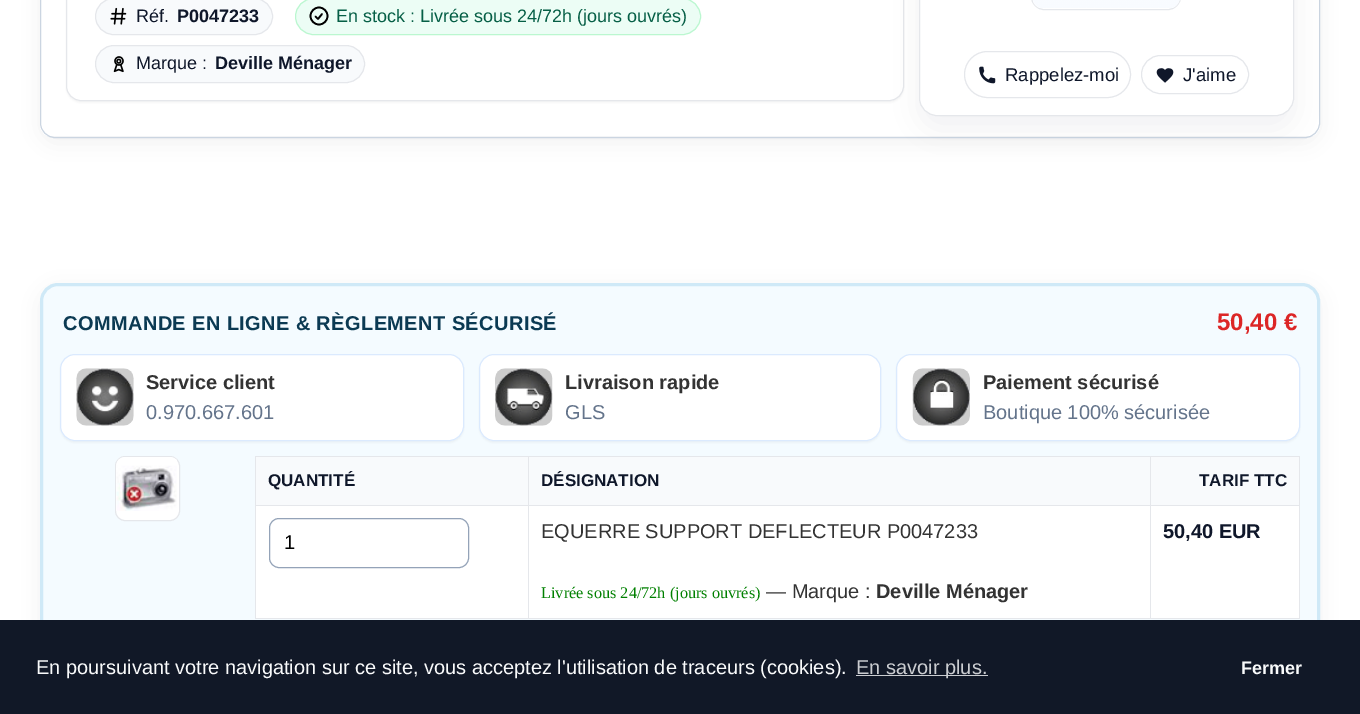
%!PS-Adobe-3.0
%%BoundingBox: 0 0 1360 714
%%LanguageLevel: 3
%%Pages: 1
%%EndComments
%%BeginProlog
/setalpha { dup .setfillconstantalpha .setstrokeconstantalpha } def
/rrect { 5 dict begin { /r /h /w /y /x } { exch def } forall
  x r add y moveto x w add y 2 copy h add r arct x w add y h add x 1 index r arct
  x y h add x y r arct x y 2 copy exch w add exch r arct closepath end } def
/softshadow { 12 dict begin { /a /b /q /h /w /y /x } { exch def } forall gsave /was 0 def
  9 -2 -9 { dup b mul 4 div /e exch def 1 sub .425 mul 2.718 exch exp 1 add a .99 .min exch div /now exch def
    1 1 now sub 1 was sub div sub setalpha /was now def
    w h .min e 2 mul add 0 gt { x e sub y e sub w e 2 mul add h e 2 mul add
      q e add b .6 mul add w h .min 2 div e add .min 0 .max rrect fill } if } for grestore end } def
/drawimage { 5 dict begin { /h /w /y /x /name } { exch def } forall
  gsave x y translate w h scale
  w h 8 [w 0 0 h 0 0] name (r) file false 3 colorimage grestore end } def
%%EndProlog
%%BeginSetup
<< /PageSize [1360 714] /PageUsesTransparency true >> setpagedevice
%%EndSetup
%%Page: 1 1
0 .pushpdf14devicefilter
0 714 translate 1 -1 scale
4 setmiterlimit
1 setgray
0 0 1360 714 rectfill
0 setgray
40 -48 1280 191 15 11 0.06 softshadow
gsave
40 -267 1280 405 15 rrect clip newpath
gsave newpath 40 0 moveto 1320 0 lineto 1320 136 lineto 40 136 lineto closepath clip newpath
<< /ShadingType 2 /ColorSpace /DeviceRGB /Coords [680 -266 680 136] /Extend [true true] /Function << /FunctionType 3 /Domain [0 1] /Functions [<< /FunctionType 2 /Domain [0 1] /C0 [0.953 0.957 0.965] /C1 [1 1 1] /N 1 >> << /FunctionType 2 /Domain [0 1] /C0 [1 1 1] /C1 [1 1 1] /N 1 >>] /Bounds [0.7] /Encode [0 1 0 1] >> >> shfill grestore
gsave newpath 40 136 moveto 1320 136 lineto 1320 138 lineto 40 138 lineto closepath clip newpath
<< /ShadingType 2 /ColorSpace /DeviceRGB /Coords [680 136 680 539] /Extend [true true] /Function << /FunctionType 3 /Domain [0 1] /Functions [<< /FunctionType 2 /Domain [0 1] /C0 [0.953 0.957 0.965] /C1 [1 1 1] /N 1 >> << /FunctionType 2 /Domain [0 1] /C0 [1 1 1] /C1 [1 1 1] /N 1 >>] /Bounds [0.7] /Encode [0 1 0 1] >> >> shfill grestore
grestore
0.796 0.835 0.882 setrgbcolor
40.5 -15.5 1279 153 14.5 rrect stroke
0 setgray
66 -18 838 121 15 1 0.04 softshadow
1 setgray
66.5 -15.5 837 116 14.5 rrect gsave fill grestore
0.898 0.906 0.922 setrgbcolor
stroke
0.973 0.98 0.988 setrgbcolor
95.5 -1.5 177 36 18 rrect gsave fill grestore
0.898 0.906 0.922 setrgbcolor
stroke
(images/1.raw) 110 7 17 18 drawimage
0.925 0.992 0.961 setrgbcolor
295.5 -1.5 405 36 18 rrect gsave fill grestore
0.733 0.969 0.816 setrgbcolor
stroke
0 setgray
1.7 setlinewidth
newpath 319 16 8.5 0 360 arc closepath stroke
1 setlinecap
1 setlinejoin
newpath 315.5 16.5 moveto 318 19 lineto 322 14 lineto stroke
0.973 0.98 0.988 setrgbcolor
95.5 45.5 269 37 18.5 rrect gsave fill grestore
0.898 0.906 0.922 setrgbcolor
1 setlinewidth
0 setlinecap
0 setlinejoin
stroke
(images/2.raw) 113 56 11 17 drawimage
0.008 0.125 0.2 setrgbcolor
919 -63 375 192 18 15 0.06 softshadow
1 setgray
919.5 -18.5 374 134 17.5 rrect gsave fill grestore
0.898 0.906 0.922 setrgbcolor
stroke
1031.5 -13.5 149 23 12.5 rrect stroke
(images/3.raw) 1033 0 147 8 drawimage
964.5 51.5 166 46 23 rrect stroke
(images/4.raw) 979 66 17 18 drawimage
1141.5 55.5 107 38 19 rrect stroke
(images/5.raw) 1156 68 18 15 drawimage
0.008 0.125 0.2 setrgbcolor
40 288 1280 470 18 11 0.05 softshadow
0.957 0.984 1 setrgbcolor
41.5 284.5 1277 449 16.5 rrect gsave fill grestore
0.812 0.914 0.969 setrgbcolor
3 setlinewidth
stroke
0 setgray
60 355 404 88 15 1 0.04 softshadow
1 setgray
60.5 354.5 403 86 14.5 rrect gsave fill grestore
0.859 0.918 0.996 setrgbcolor
1 setlinewidth
stroke
(images/6.raw) 76 368 58 58 drawimage
0 setgray
479 355 402 88 15 1 0.04 softshadow
1 setgray
479.5 354.5 401 86 14.5 rrect gsave fill grestore
0.859 0.918 0.996 setrgbcolor
stroke
(images/7.raw) 495 368 58 58 drawimage
0 setgray
896 355 404 88 15 1 0.04 softshadow
1 setgray
896.5 354.5 403 86 14.5 rrect gsave fill grestore
0.859 0.918 0.996 setrgbcolor
stroke
(images/8.raw) 912 368 58 58 drawimage
1 setgray
115.5 456.5 64 64 9.5 rrect gsave fill grestore
0.898 0.906 0.922 setrgbcolor
stroke
(images/9.raw) 116 457 61 54 drawimage
1 setgray
256 506 1043 112 rectfill
0.898 0.906 0.922 setrgbcolor
255 456 1045 1 rectfill
1299 456 1 163 rectfill
255 618 1045 1 rectfill
255 456 1 163 rectfill
0.973 0.98 0.988 setrgbcolor
256 457 272 48 rectfill
529 457 621 48 rectfill
0.898 0.906 0.922 setrgbcolor
1150 505 150 1 rectfill
1150 505 1 114 rectfill
528 505 623 1 rectfill
528 505 1 114 rectfill
255 505 274 1 rectfill
528 456 1 50 rectfill
0.973 0.98 0.988 setrgbcolor
1151 457 148 48 rectfill
0.898 0.906 0.922 setrgbcolor
1150 456 1 50 rectfill
0.58 0.639 0.722 setrgbcolor
269.5 518.5 199 49 9.5 rrect stroke
0.067 0.094 0.153 setrgbcolor
0 620 1360 94 rectfill
0.796 0.804 0.82 setrgbcolor
856 675 132 1 rectfill
/LiberationSans-Regular [18 0 0 -18 0 0] selectfont
0.059 0.09 0.165 setrgbcolor
136 22 moveto (Réf.) show
/LiberationSans-Bold [18 0 0 -18 0 0] selectfont
177 22 moveto (P0047233) show
/LiberationSans-Regular [18 0 0 -18 0 0] selectfont
0.024 0.373 0.275 setrgbcolor
336 22 moveto (En stock : Livrée sous 24/72h \(jours ouvrés\)) show
0.059 0.09 0.165 setrgbcolor
136 69 moveto (Marque :) show
/LiberationSans-Bold [18 0 0 -18 0 0] selectfont
215 69 moveto (Deville Ménager) show
/LiberationSans-Regular [18.5 0 0 -18.5 0 0] selectfont
1005 81 moveto (Rappelez-moi) show
1183 81 moveto (J'aime) show
/LiberationSans-Bold [20 0 0 -20 0 0] selectfont
0.043 0.227 0.325 setrgbcolor
63 330 moveto 0.4 0 (COMMANDE EN LIGNE & RÈGLEMENT SÉCURISÉ) ashow
/LiberationSans-Bold [24 0 0 -24 0 0] selectfont
0.863 0.149 0.149 setrgbcolor
1217 330 moveto (50,40 €) show
/LiberationSans-Bold [20 0 0 -20 0 0] selectfont
0.2 setgray
146 389 moveto (Service client) show
/LiberationSans-Regular [20 0 0 -20 0 0] selectfont
0.392 0.455 0.545 setrgbcolor
146 419 moveto (0.970.667.601) show
/LiberationSans-Bold [20 0 0 -20 0 0] selectfont
0.2 setgray
565 389 moveto (Livraison rapide) show
/LiberationSans-Regular [20 0 0 -20 0 0] selectfont
0.392 0.455 0.545 setrgbcolor
565 419 moveto (GLS) show
/LiberationSans-Bold [20 0 0 -20 0 0] selectfont
0.2 setgray
983 389 moveto (Paiement sécurisé) show
/LiberationSans-Regular [20 0 0 -20 0 0] selectfont
0.392 0.455 0.545 setrgbcolor
983 419 moveto (Boutique 100% sécurisée) show
/LiberationSans-Bold [17 0 0 -17 0 0] selectfont
0.059 0.09 0.165 setrgbcolor
268 486 moveto (QUANTITÉ) show
541 486 moveto (DÉSIGNATION) show
1199 486 moveto (TARIF TTC) show
/LiberationSans-Regular [20 0 0 -20 0 0] selectfont
0 setgray
284 549 moveto (1) show
0.2 setgray
541 538 moveto (EQUERRE SUPPORT DEFLECTEUR P0047233) show
/LiberationSerif-Regular [16.25 0 0 -16.25 0 0] selectfont
0 0.502 0 setrgbcolor
541 598 moveto (Livrée sous 24/72h \(jours ouvrés\)) show
/LiberationSans-Regular [20 0 0 -20 0 0] selectfont
0.2 setgray
766 598 moveto (— Marque :) show
/LiberationSans-Bold [20 0 0 -20 0 0] selectfont
876 598 moveto (Deville Ménager) show
0.059 0.09 0.165 setrgbcolor
1163 538 moveto (50,40 EUR) show
/LiberationSans-Regular [20 0 0 -20 0 0] selectfont
0.976 0.98 0.984 setrgbcolor
36 674 moveto (En poursuivant votre navigation sur ce site, vous acceptez l'utilisation de traceurs \(cookies\).) show
0.796 0.804 0.82 setrgbcolor
856 674 moveto (En savoir plus.) show
/LiberationSans-Bold [18 0 0 -18 0 0] selectfont
0.976 0.98 0.984 setrgbcolor
1241 674 moveto (Fermer) show
.poppdf14devicefilter showpage
%%EOF
